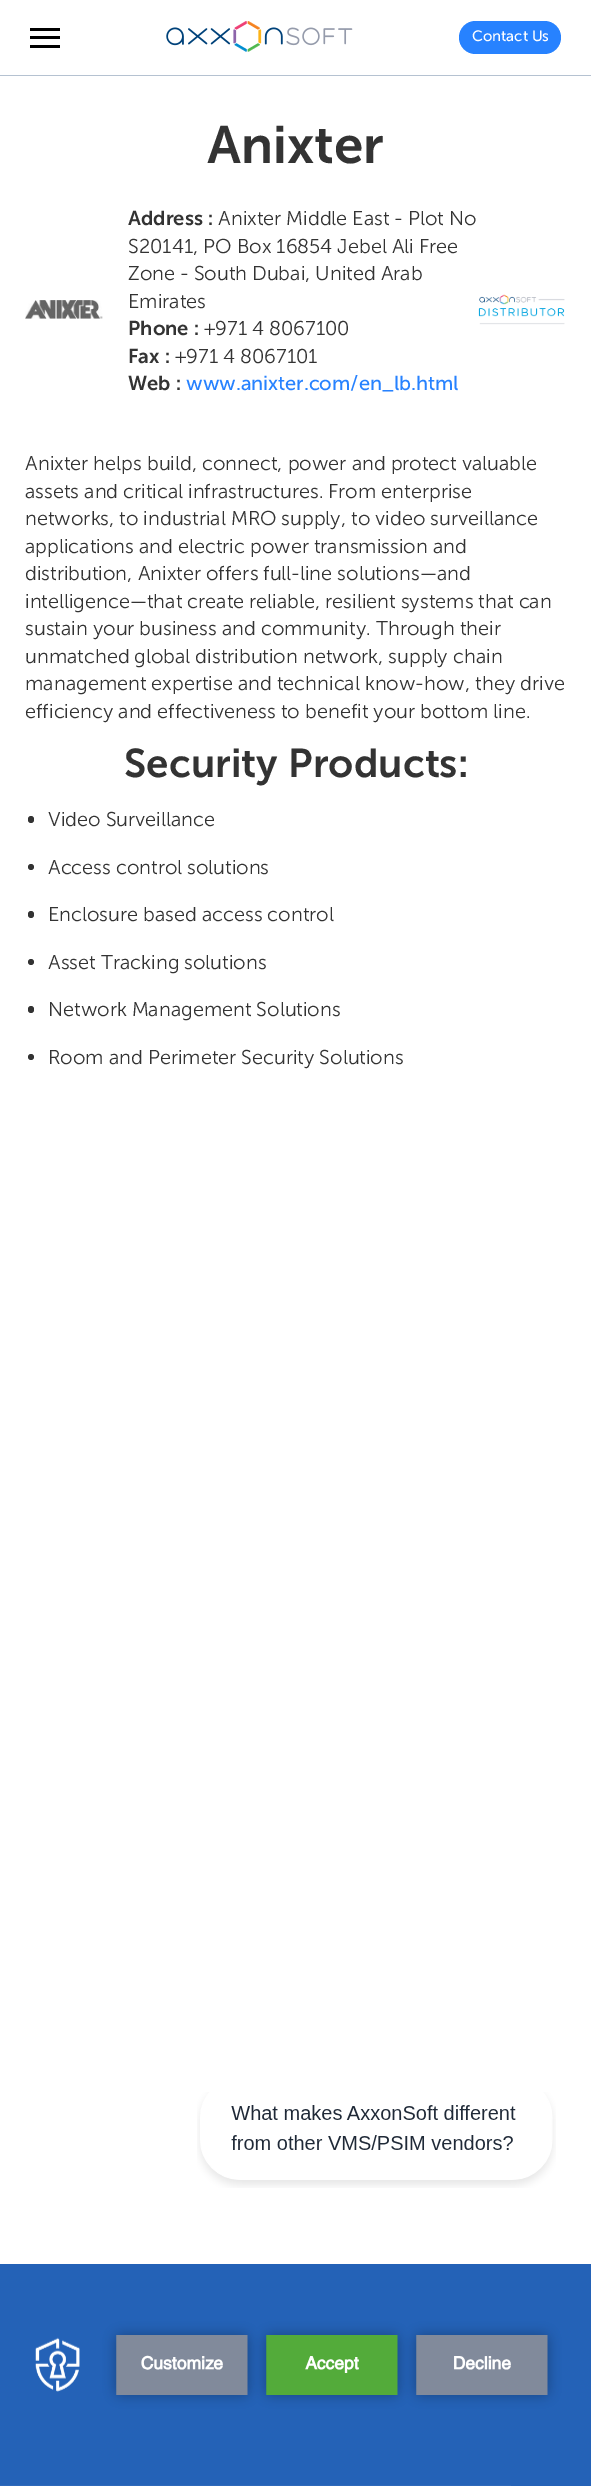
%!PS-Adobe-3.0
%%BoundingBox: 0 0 591 2486
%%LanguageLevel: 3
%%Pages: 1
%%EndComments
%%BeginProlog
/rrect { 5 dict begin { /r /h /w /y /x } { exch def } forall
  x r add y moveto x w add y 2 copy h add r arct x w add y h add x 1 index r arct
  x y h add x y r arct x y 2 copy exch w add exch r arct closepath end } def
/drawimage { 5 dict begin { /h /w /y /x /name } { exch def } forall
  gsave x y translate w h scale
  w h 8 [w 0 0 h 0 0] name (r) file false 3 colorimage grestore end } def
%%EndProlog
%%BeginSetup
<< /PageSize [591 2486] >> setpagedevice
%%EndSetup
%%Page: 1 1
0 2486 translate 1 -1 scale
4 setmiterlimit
1 setgray
0 0 591 2486 rectfill
0.71 0.761 0.82 setrgbcolor
0 75 591 1 rectfill
0 setgray
30 36 30 3 rectfill
30 28 30 3 rectfill
30 45 30 3 rectfill
(images/1.raw) 166 21 187 31 drawimage
0.153 0.51 1 setrgbcolor
459 21 102 33 16.5 rrect fill
(images/2.raw) 25 300 78 19 drawimage
(images/3.raw) 478 294 87 31 drawimage
0.2 setgray
28 816 6 7 3 rrect fill
newpath 31 867 3 0 360 arc closepath fill
28 911 6 7 3 rrect fill
newpath 31 962 3 0 360 arc closepath fill
28 1006 6 7 3 rrect fill
newpath 31 1057 3 0 360 arc closepath fill
(images/4.raw) 197 2092 359 96 drawimage
(images/5.raw) 0 2264 591 222 drawimage
/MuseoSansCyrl-Regular [15 0 0 -15 0 0] selectfont
1 setgray
472 41 moveto (Contact Us) show
/MuseoSansCyrl-SemiBold [52.5 0 0 -52.5 0 0] selectfont
0.2 setgray
207 163 moveto (Anixter) show
/MuseoSansCyrl-SemiBold [20 0 0 -20 0 0] selectfont
128 225 moveto (Address :) show
/MuseoSansCyrl-Light [20 0 0 -20 0 0] selectfont
218 225 moveto (Anixter Middle East - Plot No) show
128 253 moveto (S20141, PO Box 16854 Jebel Ali Free) show
128 280 moveto (Zone - South Dubai, United Arab) show
128 308 moveto (Emirates) show
/MuseoSansCyrl-SemiBold [20 0 0 -20 0 0] selectfont
128 335 moveto (Phone :) show
/MuseoSansCyrl-Light [20 0 0 -20 0 0] selectfont
204 335 moveto (+971 4 8067100) show
/MuseoSansCyrl-SemiBold [20 0 0 -20 0 0] selectfont
128 363 moveto (Fax :) show
/MuseoSansCyrl-Light [20 0 0 -20 0 0] selectfont
175 363 moveto (+971 4 8067101) show
/MuseoSansCyrl-SemiBold [20 0 0 -20 0 0] selectfont
128 390 moveto (Web :) show
/MuseoSansCyrl-Regular [20 0 0 -20 0 0] selectfont
0.153 0.51 1 setrgbcolor
186 390 moveto (www.anixter.com/en_lb.html) show
/MuseoSansCyrl-Light [20 0 0 -20 0 0] selectfont
0.2 setgray
25 470 moveto (Anixter helps build, connect, power and protect valuable) show
25 498 moveto (assets and critical infrastructures. From enterprise) show
25 525 moveto (networks, to industrial MRO supply, to video surveillance) show
25 553 moveto (applications and electric power transmission and) show
25 580 moveto (distribution, Anixter offers full-line solutions—and) show
25 608 moveto (intelligence—that create reliable, resilient systems that can) show
25 635 moveto (sustain your business and community. Through their) show
25 663 moveto (unmatched global distribution network, supply chain) show
25 690 moveto (management expertise and technical know-how, they drive) show
25 718 moveto (efficiency and effectiveness to benefit your bottom line.) show
/MuseoSansCyrl-SemiBold [40 0 0 -40 0 0] selectfont
124 777 moveto (Security Products:) show
/MuseoSansCyrl-Light [20 0 0 -20 0 0] selectfont
48 826 moveto (Video Surveillance) show
48 874 moveto (Access control solutions) show
48 921 moveto (Enclosure based access control) show
48 969 moveto (Asset Tracking solutions) show
48 1016 moveto (Network Management Solutions) show
48 1064 moveto (Room and Perimeter Security Solutions) show
showpage
%%EOF
